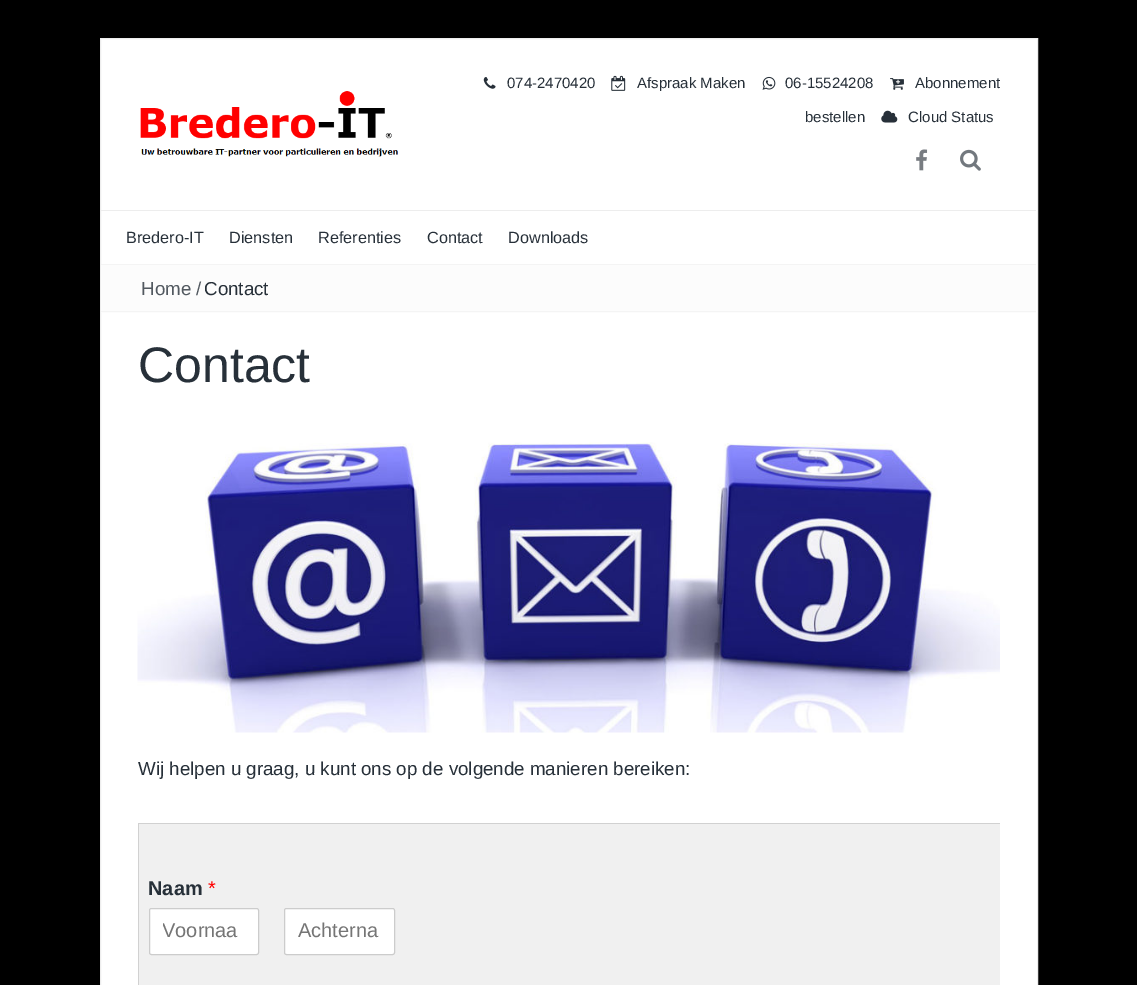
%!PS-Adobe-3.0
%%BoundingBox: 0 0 1137 985
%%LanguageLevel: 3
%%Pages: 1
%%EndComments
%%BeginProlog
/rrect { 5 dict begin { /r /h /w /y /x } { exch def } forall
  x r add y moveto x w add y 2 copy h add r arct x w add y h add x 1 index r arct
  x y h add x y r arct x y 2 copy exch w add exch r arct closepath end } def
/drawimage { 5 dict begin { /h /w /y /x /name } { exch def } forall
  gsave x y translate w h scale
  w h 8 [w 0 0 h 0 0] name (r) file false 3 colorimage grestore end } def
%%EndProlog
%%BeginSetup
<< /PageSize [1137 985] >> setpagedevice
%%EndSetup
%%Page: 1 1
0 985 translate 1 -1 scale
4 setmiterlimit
0 setgray
0 0 1137 985 rectfill
1 setgray
newpath 100.5 38.5 moveto 1037.5 38.5 lineto 1037.5 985.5 lineto 100.5 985.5 lineto closepath gsave fill grestore
0.929 setgray
stroke
(images/1.raw) 140 91 258 66 drawimage
(images/2.raw) 483 77 13 12 drawimage
(images/3.raw) 611 75 15 16 drawimage
(images/4.raw) 762 76 14 14 drawimage
(images/5.raw) 890 78 14 12 drawimage
(images/6.raw) 881 110 17 13 drawimage
(images/7.raw) 916 149 12 22 drawimage
(images/8.raw) 960 149 21 22 drawimage
101 210 935 1 rectfill
0.988 setgray
101 265 935 48 rectfill
0.957 setgray
101 264 935 1 rectfill
101 311 935 1 rectfill
(images/9.raw) 137 442 863 291 drawimage
0.82 setgray
138 823 862 1 rectfill
138 823 1 162 rectfill
0.941 setgray
139 824 861 161 rectfill
1 setgray
149.5 908.5 109 46 2 rrect gsave fill grestore
0.8 setgray
stroke
1 setgray
284.5 908.5 110 46 2 rrect gsave fill grestore
0.8 setgray
stroke
/LiberationSans-Regular [15 0 0 -15 0 0] selectfont
0.153 0.188 0.224 setrgbcolor
507 88 moveto (074-2470420) show
637 88 moveto (Afspraak Maken) show
785 88 moveto (06-15524208) show
915 88 moveto (Abonnement) show
805 122 moveto (bestellen) show
908 122 moveto (Cloud Status) show
/LiberationSans-Regular [16.25 0 0 -16.25 0 0] selectfont
126 243 moveto (Bredero-IT) show
229 243 moveto (Diensten) show
318 243 moveto (Referenties) show
427 243 moveto (Contact) show
508 243 moveto (Downloads) show
/LiberationSans-Regular [18.75 0 0 -18.75 0 0] selectfont
0.322 0.349 0.376 setrgbcolor
141 295 moveto (Home /) show
0.153 0.188 0.224 setrgbcolor
204 295 moveto (Contact) show
/LiberationSans-Regular [50 0 0 -50 0 0] selectfont
138 382 moveto (Contact) show
/LiberationSans-Regular [18.75 0 0 -18.75 0 0] selectfont
138 775 moveto (Wij helpen u graag, u kunt ons op de volgende manieren bereiken:) show
/LiberationSans-Bold [20 0 0 -20 0 0] selectfont
148 895 moveto (Naam) show
/LiberationSans-Regular [20 0 0 -20 0 0] selectfont
1 0 0 setrgbcolor
208 895 moveto (*) show
gsave
163 920 82 23 rectclip
0.459 setgray
162 937 moveto (Voornaa) show
grestore
0.459 setgray
298 937 moveto (Achterna) show
showpage
%%EOF
